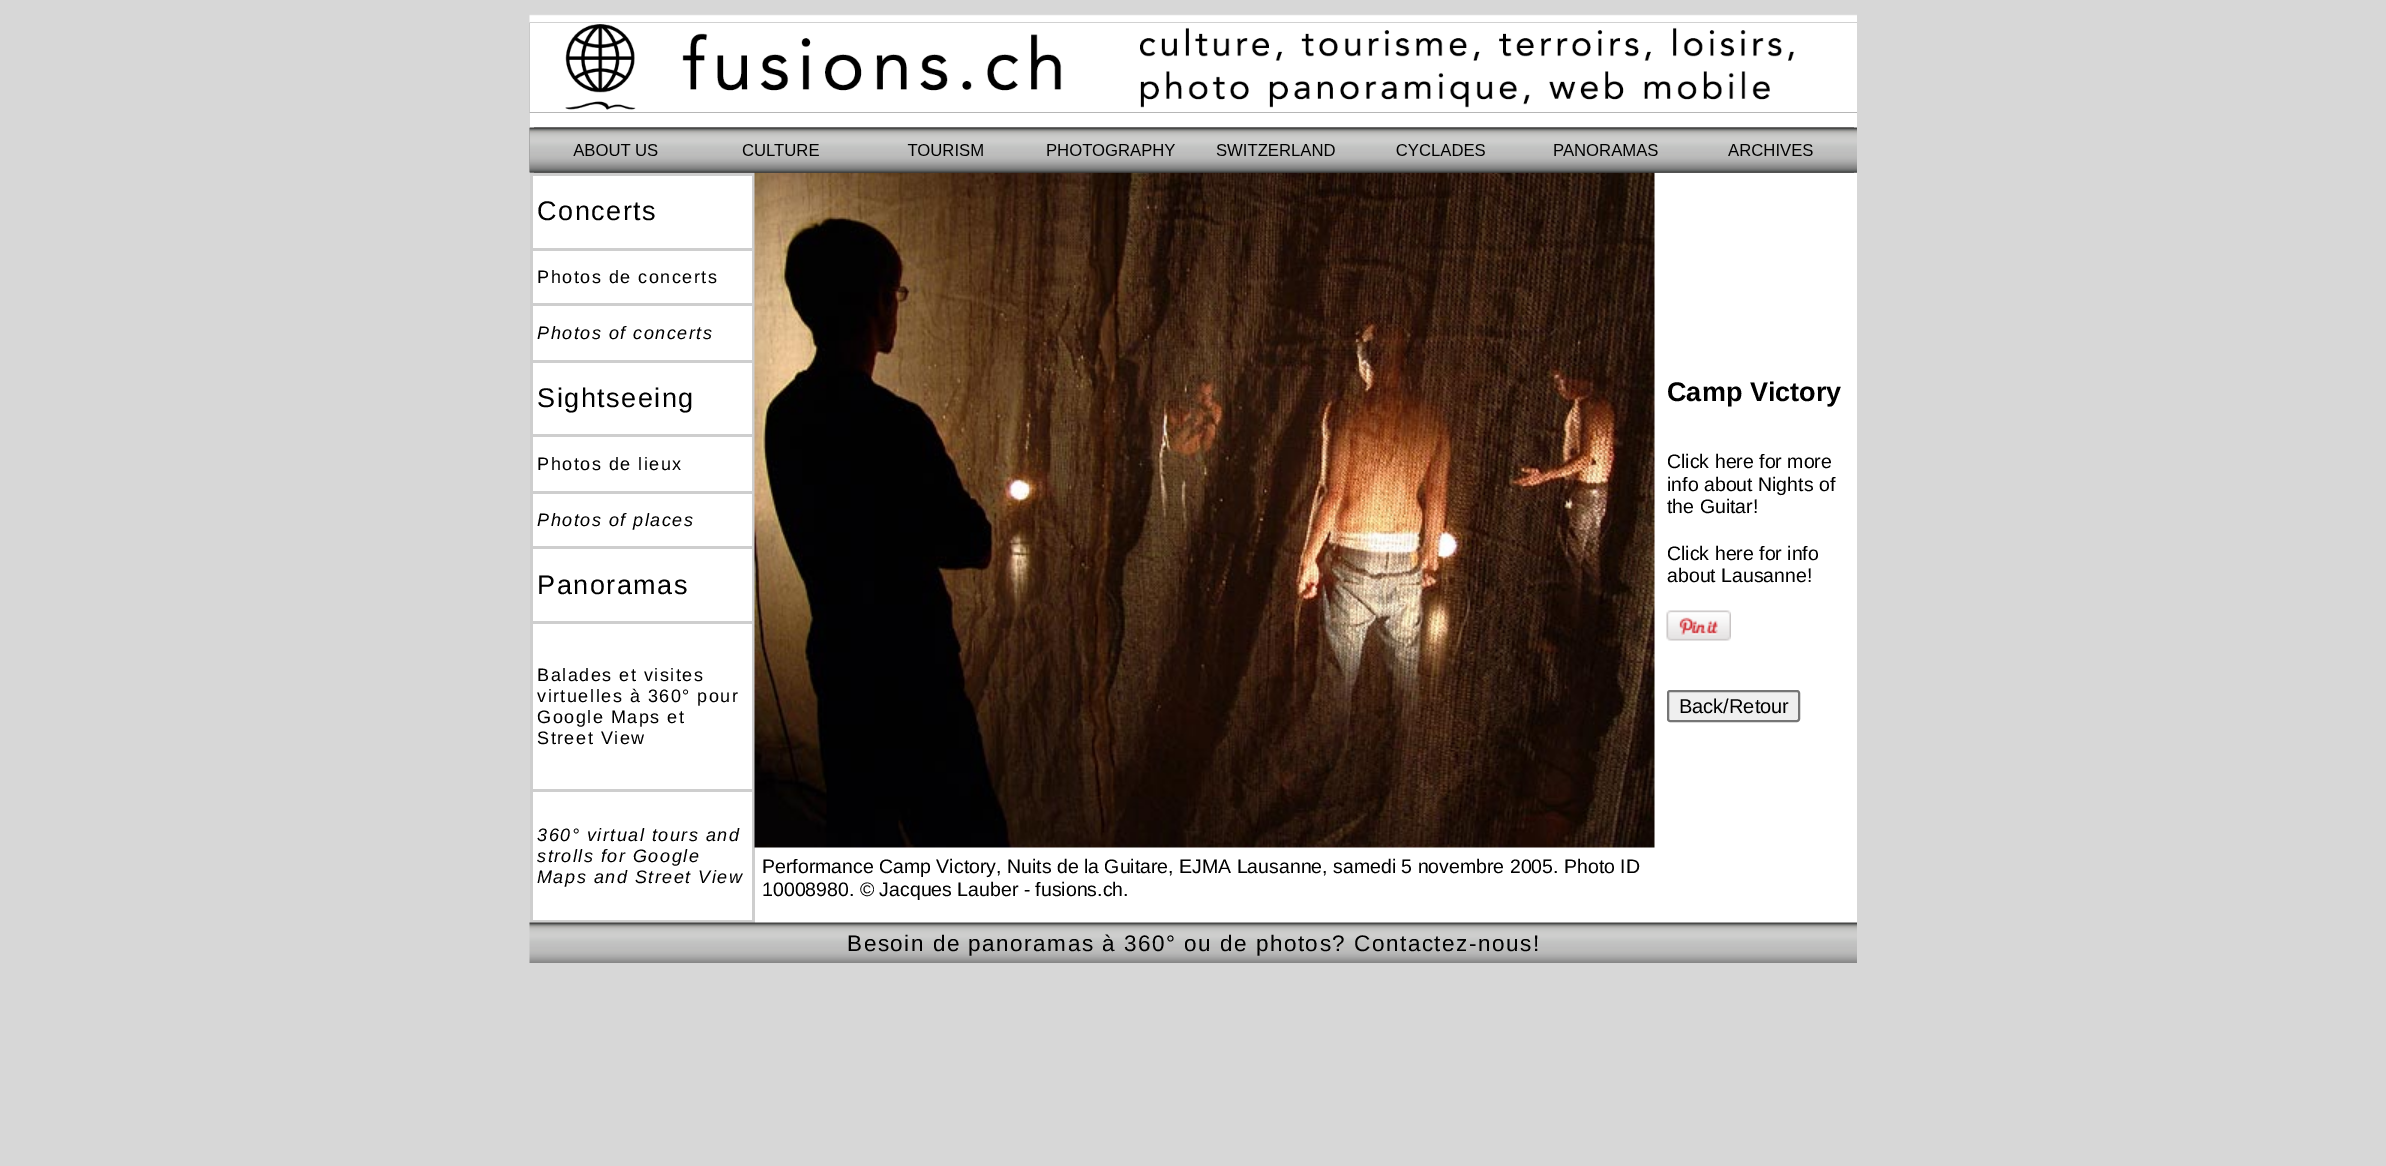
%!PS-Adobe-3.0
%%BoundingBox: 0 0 2386 1166
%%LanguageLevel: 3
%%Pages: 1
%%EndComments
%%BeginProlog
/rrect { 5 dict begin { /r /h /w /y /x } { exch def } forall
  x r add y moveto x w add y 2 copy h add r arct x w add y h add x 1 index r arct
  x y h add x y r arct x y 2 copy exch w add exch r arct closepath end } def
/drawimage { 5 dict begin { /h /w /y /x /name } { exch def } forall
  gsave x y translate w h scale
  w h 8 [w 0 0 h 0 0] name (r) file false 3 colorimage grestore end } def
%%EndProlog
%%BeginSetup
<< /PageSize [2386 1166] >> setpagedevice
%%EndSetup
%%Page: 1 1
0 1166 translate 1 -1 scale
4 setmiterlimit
0.843 setgray
0 0 2386 1166 rectfill
(images/1.raw) 529 14 1328 9 drawimage
1 setgray
530 112 1327 811 rectfill
(images/2.raw) 529 22 1328 91 drawimage
0.808 setgray
530 173 225 750 rectfill
(images/5.raw) 754 172 901 676 drawimage
(images/3.raw) 529 127 1328 46 drawimage
1 setgray
533 176 219 72 rectfill
533 251 219 52 rectfill
533 306 219 54 rectfill
533 363 219 71 rectfill
533 437 219 54 rectfill
533 494 219 52 rectfill
533 549 219 72 rectfill
533 624 219 165 rectfill
533 792 219 128 rectfill
(images/4.raw) 1666 610 65 31 drawimage
0.937 setgray
1668 691 131 30 2 rrect gsave fill grestore
0.463 setgray
2 setlinewidth
stroke
(images/6.raw) 529 922 1328 41 drawimage
/LiberationSans-Regular [27 0 0 -27 0 0] selectfont
0 setgray
537 220 moveto 1.5 0 (Concerts) ashow
/LiberationSans-Regular [18 0 0 -18 0 0] selectfont
537 283 moveto 1.5 0 (Photos de concerts) ashow
/LiberationSans-Italic [18 0 0 -18 0 0] selectfont
537 339 moveto 1.5 0 (Photos of concerts) ashow
/LiberationSans-Regular [27 0 0 -27 0 0] selectfont
537 407 moveto 1.5 0 (Sightseeing) ashow
/LiberationSans-Regular [18 0 0 -18 0 0] selectfont
537 470 moveto 1.5 0 (Photos de lieux) ashow
/LiberationSans-Italic [18 0 0 -18 0 0] selectfont
537 526 moveto 1.5 0 (Photos of places) ashow
/LiberationSans-Regular [27 0 0 -27 0 0] selectfont
537 594 moveto 1.5 0 (Panoramas) ashow
/LiberationSans-Regular [18 0 0 -18 0 0] selectfont
537 681 moveto 1.5 0 (Balades et visites) ashow
537 702 moveto 1.5 0 (virtuelles à 360° pour) ashow
537 723 moveto 1.5 0 (Google Maps et) ashow
537 744 moveto 1.5 0 (Street View) ashow
/LiberationSans-Italic [18 0 0 -18 0 0] selectfont
537 841 moveto 1.5 0 (360° virtual tours and) ashow
537 862 moveto 1.5 0 (strolls for Google) ashow
537 883 moveto 1.5 0 (Maps and Street View) ashow
/LiberationSans-Bold [27 0 0 -27 0 0] selectfont
1667 401 moveto (Camp Victory) show
/LiberationSans-Regular [19.5 0 0 -19.5 0 0] selectfont
1667 468 moveto (Click here for more) show
1667 491 moveto (info about Nights of) show
1667 513 moveto (the Guitar!) show
1667 560 moveto (Click here for info) show
1667 582 moveto (about Lausanne!) show
/LiberationSans-Regular [20 0 0 -20 0 0] selectfont
1679 713 moveto (Back/Retour) show
/LiberationSans-Regular [19.5 0 0 -19.5 0 0] selectfont
762 873 moveto (Performance Camp Victory, Nuits de la Guitare, EJMA Lausanne, samedi 5 novembre 2005. Photo ID) show
762 896 moveto (10008980. © Jacques Lauber - fusions.ch.) show
/LiberationSans-Regular [22.5 0 0 -22.5 0 0] selectfont
847 951 moveto 1.5 0 (Besoin de panoramas à 360° ou de photos? Contactez-nous!) ashow
showpage
%%EOF
